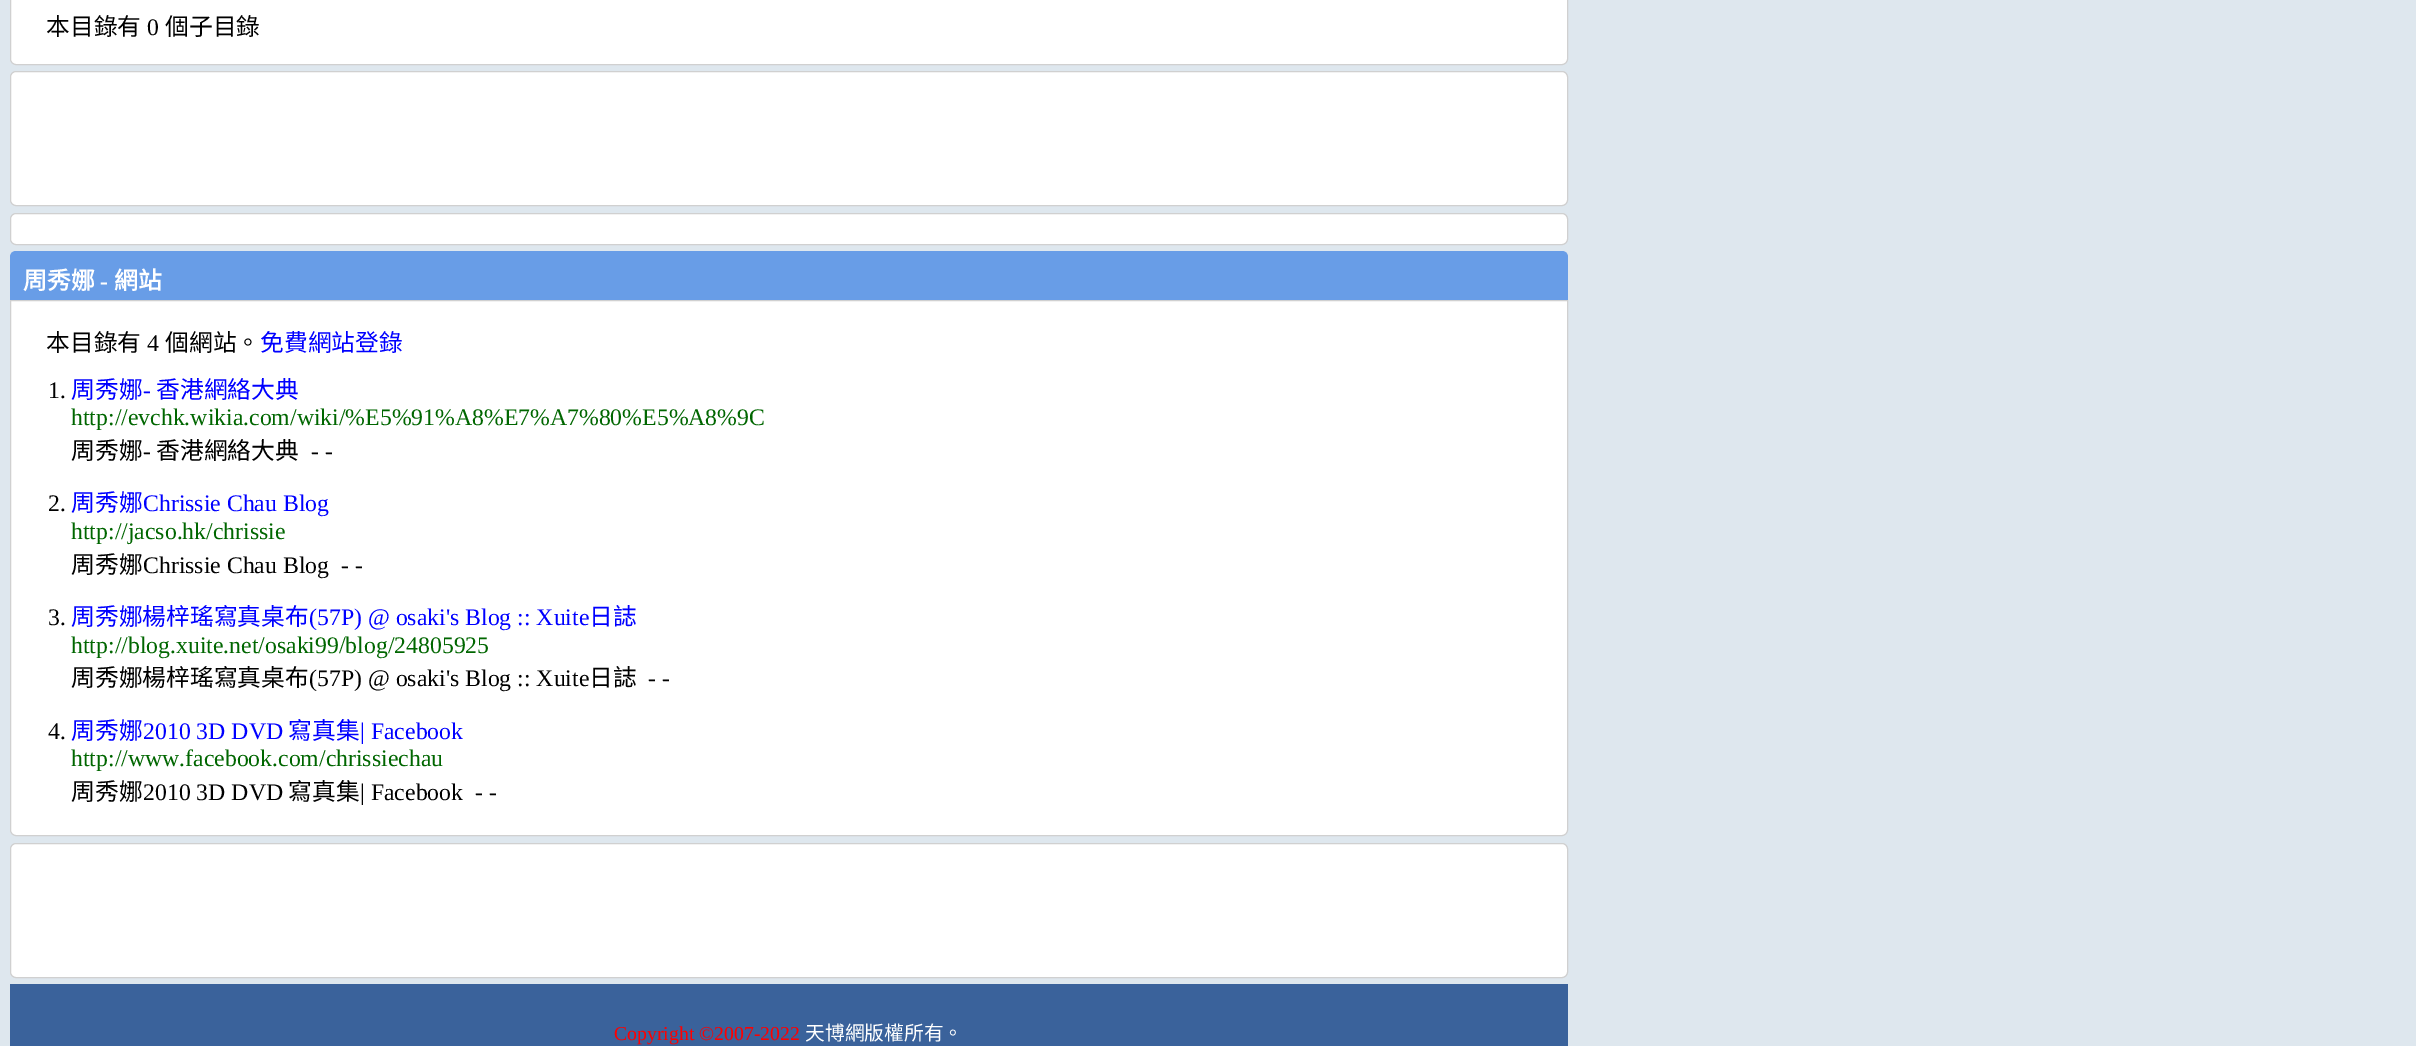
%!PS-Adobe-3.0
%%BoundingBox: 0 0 2416 1046
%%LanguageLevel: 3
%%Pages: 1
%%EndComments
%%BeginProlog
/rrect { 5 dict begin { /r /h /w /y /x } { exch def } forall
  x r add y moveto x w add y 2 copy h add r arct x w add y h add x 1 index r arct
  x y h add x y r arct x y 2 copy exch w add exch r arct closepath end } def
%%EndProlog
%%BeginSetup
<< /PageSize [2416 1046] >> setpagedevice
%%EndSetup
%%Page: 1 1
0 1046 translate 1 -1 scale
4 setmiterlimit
0.871 0.906 0.933 setrgbcolor
0 0 2416 1046 rectfill
1 setgray
newpath 10.5 -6.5 moveto 1567.5 -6.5 lineto 1567.5 59 lineto 1567.5 62 1565 64.5 1562 64.5 curveto 16 64.5 lineto 13 64.5 10.5 62 10.5 59 curveto closepath gsave fill grestore
0.816 setgray
stroke
1 setgray
10.5 71.5 1557 134 5.5 rrect gsave fill grestore
0.816 setgray
stroke
1 setgray
10.5 213.5 1557 31 5.5 rrect gsave fill grestore
0.816 setgray
stroke
0.408 0.616 0.906 setrgbcolor
newpath 16 251 moveto 1562 251 lineto 1565.5 251 1568 253.5 1568 257 curveto 1568 300 lineto 10 300 lineto 10 257 lineto 10 253.5 12.5 251 16 251 curveto closepath fill
1 setgray
newpath 10.5 300.5 moveto 1567.5 300.5 lineto 1567.5 830 lineto 1567.5 833 1565 835.5 1562 835.5 curveto 16 835.5 lineto 13 835.5 10.5 833 10.5 830 curveto closepath gsave fill grestore
0.816 setgray
stroke
1 setgray
10.5 843.5 1557 134 5.5 rrect gsave fill grestore
0.816 setgray
stroke
0.227 0.384 0.608 setrgbcolor
10 984 1558 62 rectfill
/NotoSansCJKHK-Regular [23.75 0 0 -23.75 0 0] selectfont
0 setgray
46 35 moveto (本目錄有) show
/LiberationSerif-Regular [23.75 0 0 -23.75 0 0] selectfont
147 35 moveto (0) show
/NotoSansCJKHK-Regular [23.75 0 0 -23.75 0 0] selectfont
165 35 moveto (個子目錄) show
/NotoSansCJKHK-Bold [23.75 0 0 -23.75 0 0] selectfont
1 setgray
23 289 moveto (周秀娜) show
/LiberationSerif-Bold [23.75 0 0 -23.75 0 0] selectfont
100 289 moveto (-) show
/NotoSansCJKHK-Bold [23.75 0 0 -23.75 0 0] selectfont
114 289 moveto (網站) show
/NotoSansCJKHK-Regular [23.75 0 0 -23.75 0 0] selectfont
0 setgray
46 351 moveto (本目錄有) show
/LiberationSerif-Regular [23.75 0 0 -23.75 0 0] selectfont
147 351 moveto (4) show
/NotoSansCJKHK-Regular [23.75 0 0 -23.75 0 0] selectfont
165 351 moveto (個網站。) show
0 0 1 setrgbcolor
260 351 moveto (免費網站登錄) show
/LiberationSerif-Regular [23.75 0 0 -23.75 0 0] selectfont
0 setgray
48 398 moveto (1.) show
/NotoSansCJKHK-Regular [23.75 0 0 -23.75 0 0] selectfont
0 0 1 setrgbcolor
71 398 moveto (周秀娜) show
/LiberationSerif-Regular [23.75 0 0 -23.75 0 0] selectfont
143 398 moveto (-) show
/NotoSansCJKHK-Regular [23.75 0 0 -23.75 0 0] selectfont
156 398 moveto (香港網絡大典) show
/LiberationSerif-Regular [23.75 0 0 -23.75 0 0] selectfont
0 0.4 0 setrgbcolor
71 425 moveto (http://evchk.wikia.com/wiki/%E5%91%A8%E7%A7%80%E5%A8%9C) show
/NotoSansCJKHK-Regular [23.75 0 0 -23.75 0 0] selectfont
0 setgray
71 459 moveto (周秀娜) show
/LiberationSerif-Regular [23.75 0 0 -23.75 0 0] selectfont
143 459 moveto (-) show
/NotoSansCJKHK-Regular [23.75 0 0 -23.75 0 0] selectfont
156 459 moveto (香港網絡大典) show
/LiberationSerif-Regular [23.75 0 0 -23.75 0 0] selectfont
311 459 moveto (- -) show
48 511 moveto (2.) show
/NotoSansCJKHK-Regular [23.75 0 0 -23.75 0 0] selectfont
0 0 1 setrgbcolor
71 511 moveto (周秀娜) show
/LiberationSerif-Regular [23.75 0 0 -23.75 0 0] selectfont
143 511 moveto (Chrissie Chau Blog) show
0 0.4 0 setrgbcolor
71 539 moveto (http://jacso.hk/chrissie) show
/NotoSansCJKHK-Regular [23.75 0 0 -23.75 0 0] selectfont
0 setgray
71 573 moveto (周秀娜) show
/LiberationSerif-Regular [23.75 0 0 -23.75 0 0] selectfont
143 573 moveto (Chrissie Chau Blog  - -) show
48 625 moveto (3.) show
/NotoSansCJKHK-Regular [23.75 0 0 -23.75 0 0] selectfont
0 0 1 setrgbcolor
71 625 moveto (周秀娜楊梓瑤寫真桌布) show
/LiberationSerif-Regular [23.75 0 0 -23.75 0 0] selectfont
309 625 moveto (\(57P\) @ osaki's Blog :: Xuite) show
/NotoSansCJKHK-Regular [23.75 0 0 -23.75 0 0] selectfont
589 625 moveto (日誌) show
/LiberationSerif-Regular [23.75 0 0 -23.75 0 0] selectfont
0 0.4 0 setrgbcolor
71 653 moveto (http://blog.xuite.net/osaki99/blog/24805925) show
/NotoSansCJKHK-Regular [23.75 0 0 -23.75 0 0] selectfont
0 setgray
71 686 moveto (周秀娜楊梓瑤寫真桌布) show
/LiberationSerif-Regular [23.75 0 0 -23.75 0 0] selectfont
309 686 moveto (\(57P\) @ osaki's Blog :: Xuite) show
/NotoSansCJKHK-Regular [23.75 0 0 -23.75 0 0] selectfont
589 686 moveto (日誌) show
/LiberationSerif-Regular [23.75 0 0 -23.75 0 0] selectfont
648 686 moveto (- -) show
48 739 moveto (4.) show
/NotoSansCJKHK-Regular [23.75 0 0 -23.75 0 0] selectfont
0 0 1 setrgbcolor
71 739 moveto (周秀娜) show
/LiberationSerif-Regular [23.75 0 0 -23.75 0 0] selectfont
143 739 moveto (2010 3D DVD) show
/NotoSansCJKHK-Regular [23.75 0 0 -23.75 0 0] selectfont
288 739 moveto (寫真集) show
/LiberationSerif-Regular [23.75 0 0 -23.75 0 0] selectfont
360 739 moveto (| Facebook) show
0 0.4 0 setrgbcolor
71 766 moveto (http://www.facebook.com/chrissiechau) show
/NotoSansCJKHK-Regular [23.75 0 0 -23.75 0 0] selectfont
0 setgray
71 800 moveto (周秀娜) show
/LiberationSerif-Regular [23.75 0 0 -23.75 0 0] selectfont
143 800 moveto (2010 3D DVD) show
/NotoSansCJKHK-Regular [23.75 0 0 -23.75 0 0] selectfont
288 800 moveto (寫真集) show
/LiberationSerif-Regular [23.75 0 0 -23.75 0 0] selectfont
360 800 moveto (| Facebook  - -) show
/LiberationSerif-Regular [19.75 0 0 -19.75 0 0] selectfont
1 0 0 setrgbcolor
614 1040 moveto (Copyright ©2007-2022) show
/NotoSansCJKHK-Regular [19.75 0 0 -19.75 0 0] selectfont
1 setgray
805 1040 moveto (天博網版權所有。) show
showpage
%%EOF
